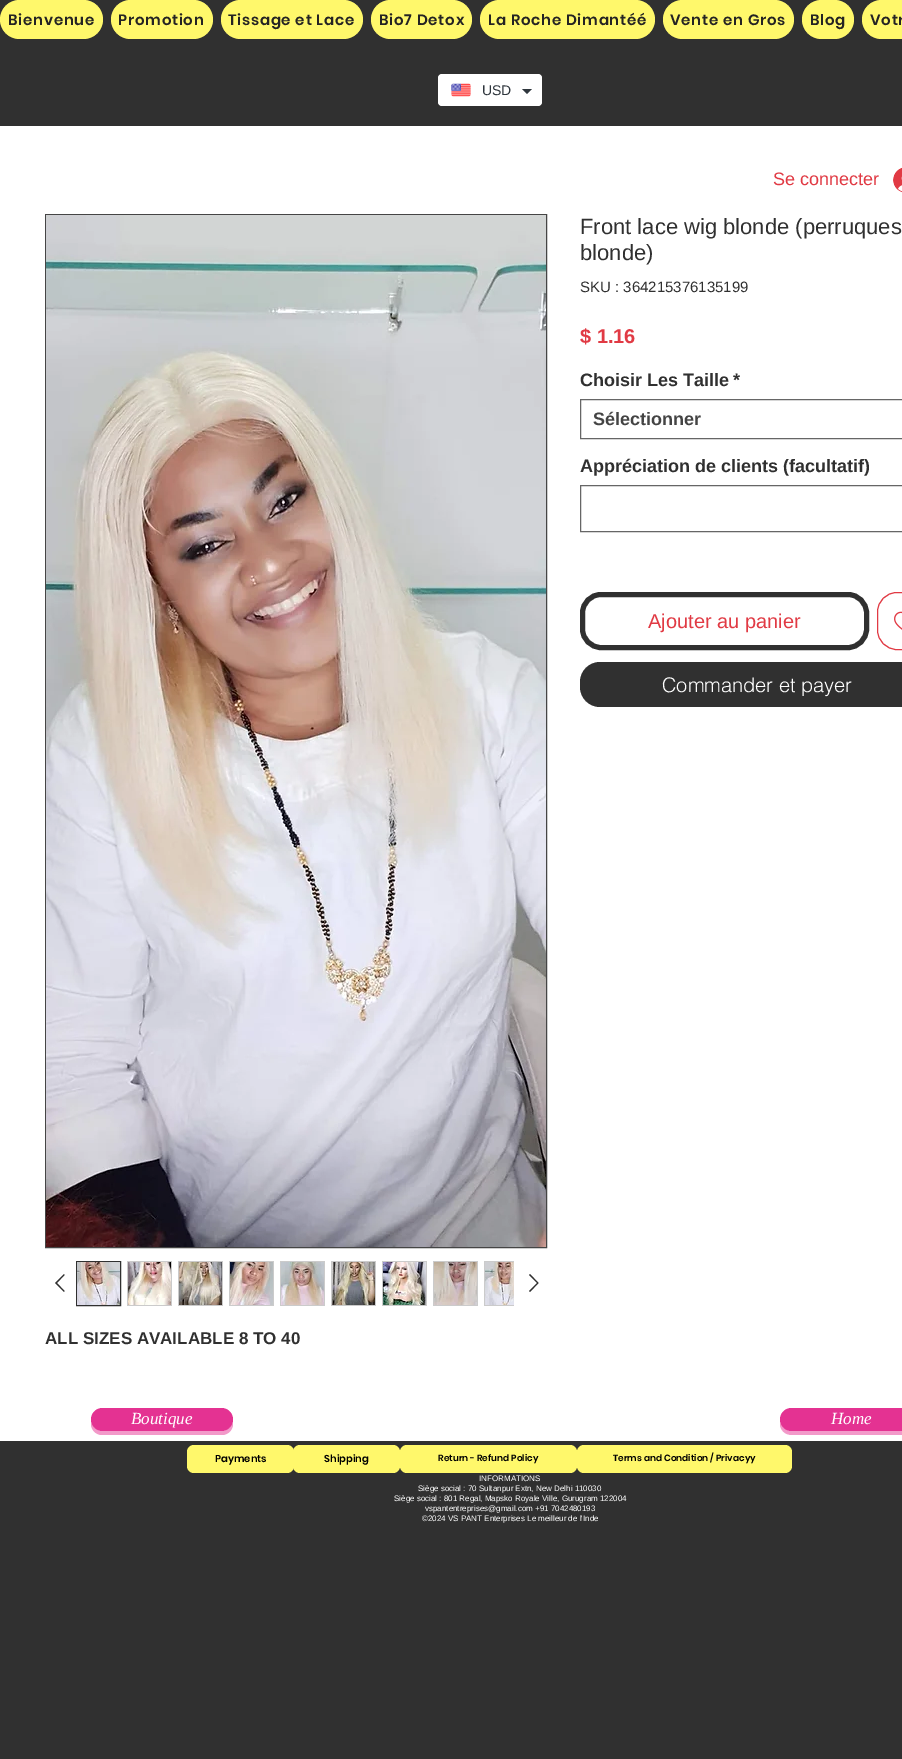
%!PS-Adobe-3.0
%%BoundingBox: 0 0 902 1759
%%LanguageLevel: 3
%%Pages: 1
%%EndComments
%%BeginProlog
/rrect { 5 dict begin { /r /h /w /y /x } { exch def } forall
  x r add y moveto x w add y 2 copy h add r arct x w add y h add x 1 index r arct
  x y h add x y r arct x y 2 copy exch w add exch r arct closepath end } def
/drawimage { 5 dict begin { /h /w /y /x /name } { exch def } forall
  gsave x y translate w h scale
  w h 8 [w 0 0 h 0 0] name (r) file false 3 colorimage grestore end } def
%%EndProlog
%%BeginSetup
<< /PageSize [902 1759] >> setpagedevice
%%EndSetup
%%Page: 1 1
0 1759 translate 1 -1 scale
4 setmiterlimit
0.188 setgray
0 0 902 1759 rectfill
1 0.973 0.42 setrgbcolor
0 0 103 39 19.5 rrect fill
111 0 102 39 19.5 rrect fill
221 0 142 39 19.5 rrect fill
371 0 101 39 19.5 rrect fill
480 0 175 39 19.5 rrect fill
663 0 131 39 19.5 rrect fill
802 0 52 39 19.5 rrect fill
862 0 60 39 19.5 rrect fill
1 setgray
438 74 104 32 4 rrect fill
(images/1.raw) 451 83 20 14 drawimage
0.184 0.212 0.239 setrgbcolor
newpath 522 89 moveto 532 89 lineto 527 94 lineto closepath fill
1 setgray
0 126 902 1315 rectfill
(images/2.raw) 893 167 9 26 drawimage
0.4 setgray
580.5 399.5 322 39 rectstroke
580.5 485.5 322 46 rectstroke
0.188 setgray
5 setlinewidth
582.5 594.5 284 53 18.5 rrect stroke
0.882 0.227 0.267 setrgbcolor
1 setlinewidth
877.5 592.5 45 57 19.5 rrect stroke
(images/3.raw) 894 611 8 19 drawimage
0.188 setgray
580 662 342 45 20 rrect fill
0.271 setgray
45.5 214.5 501 1033 rectstroke
(images/4.raw) 46 215 500 1032 drawimage
0.188 setgray
newpath 64 1274 moveto 64.5 1275 lineto 57 1283 lineto 64.5 1291 lineto 64 1292 lineto 55 1283 lineto closepath eofill
76.5 1261.5 44 44 rectstroke
(images/5.raw) 77 1262 43 43 drawimage
0.796 setgray
127 1261 45 45 rectfill
(images/6.raw) 128 1262 43 43 drawimage
178 1261 45 45 rectfill
(images/7.raw) 179 1262 43 43 drawimage
229 1261 45 45 rectfill
(images/8.raw) 230 1262 43 43 drawimage
280 1261 45 45 rectfill
(images/9.raw) 281 1262 43 43 drawimage
331 1261 45 45 rectfill
(images/10.raw) 332 1262 43 43 drawimage
382 1261 45 45 rectfill
(images/11.raw) 383 1262 43 43 drawimage
433 1261 45 45 rectfill
(images/12.raw) 434 1262 43 43 drawimage
484 1261 30 45 rectfill
(images/13.raw) 485 1262 29 43 drawimage
0.188 setgray
newpath 530 1274 moveto 538.5 1283 lineto 530 1292 lineto 529 1291 lineto 537 1283 lineto 529 1275 lineto closepath eofill
0.949 0.6 0.788 setrgbcolor
newpath 91 1422 moveto 91 1424 lineto 91 1430 96 1435 102 1435 curveto 222 1435 lineto 228 1435 233 1430 233 1424 curveto 233 1422 lineto 232 1427 227 1431 222 1431 curveto 102 1431 lineto 97 1431 92 1427 91 1422 curveto closepath fill
0.894 0.196 0.573 setrgbcolor
91 1408 142 23 11.5 rrect fill
0.949 0.6 0.788 setrgbcolor
newpath 780 1422 moveto 780 1424 lineto 780 1430 785 1435 792 1435 curveto 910 1435 lineto 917 1435 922 1430 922 1424 curveto 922 1422 lineto 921 1427 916 1431 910 1431 curveto 792 1431 lineto 786 1431 781 1427 780 1422 curveto closepath fill
0.894 0.196 0.573 setrgbcolor
780 1408 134 23 11.5 rrect fill
1 0.973 0.42 setrgbcolor
187 1445 107 28 7 rrect fill
293 1445 107 28 7 rrect fill
400 1445 177 28 7 rrect fill
577 1445 215 28 7 rrect fill
/Poppins-SemiBold [15 0 0 -15 0 0] selectfont
0.141 0.137 0.137 setrgbcolor
8 25 moveto 0.75 0 (Bienvenue) ashow
118 25 moveto 0.75 0 (Promotion) ashow
228 25 moveto 0.75 0 (Tissage et Lace) ashow
379 25 moveto 0.75 0 (Bio7 Detox) ashow
488 25 moveto 0.75 0 (La Roche Dimantéé) ashow
670 25 moveto 0.75 0 (Vente en Gros) ashow
810 25 moveto 0.75 0 (Blog) ashow
870 25 moveto 0.75 0 (Votr) ashow
/LiberationSans-Regular [14 0 0 -14 0 0] selectfont
0.184 0.212 0.239 setrgbcolor
482 95 moveto (USD) show
/LiberationSans-Regular [18 0 0 -18 0 0] selectfont
0.882 0.227 0.267 setrgbcolor
773 185 moveto (Se connecter) show
/LiberationSans-Regular [22 0 0 -22 0 0] selectfont
0.188 setgray
580 234 moveto (Front lace wig blonde \(perruques) show
580 260 moveto (blonde\)) show
/LiberationSans-Regular [15 0 0 -15 0 0] selectfont
580 292 moveto (SKU : 364215376135199) show
/LiberationSans-Bold [20 0 0 -20 0 0] selectfont
0.882 0.227 0.267 setrgbcolor
580 343 moveto ($ 1.16) show
/LiberationSans-Bold [18 0 0 -18 0 0] selectfont
0.188 setgray
580 386 moveto (Choisir Les Taille) show
733 386 moveto (*) show
0.267 setgray
593 425 moveto (Sélectionner) show
0.188 setgray
580 472 moveto (Appréciation de clients \(facultatif\)) show
/LiberationSans-Regular [20 0 0 -20 0 0] selectfont
0.882 0.227 0.267 setrgbcolor
648 628 moveto (Ajouter au panier) show
/helvetica-Light [20 0 0 -20 0 0] selectfont
1 setgray
662 692 moveto (Commander et payer) show
/LiberationSans-Bold [17 0 0 -17 0 0] selectfont
0.188 setgray
45 1344 moveto (ALL SIZES AVAILABLE 8 TO 40) show
/LiberationSerif-Italic [17 0 0 -17 0 0] selectfont
1 setgray
131 1424 moveto (Boutique) show
831 1424 moveto (Home) show
/Poppins-SemiBold [10 0 0 -10 0 0] selectfont
0 setgray
215 1462 moveto (Payments) show
324 1462 moveto (Shipping) show
/Poppins-SemiBold [9 0 0 -9 0 0] selectfont
438 1461 moveto (Return - Refund Policy) show
613 1461 moveto (Terms and Condition / Privacyy) show
/LiberationSans-Regular [8 0 0 -8 0 0] selectfont
1 setgray
479 1481 moveto (INFORMATIONS) show
418 1491 moveto (Siège social : 70 Sultanpur Extn, New Delhi 110030) show
394 1501 moveto (Siège social : 801 Regal, Mapsko Royale Ville, Gurugram 122004) show
425 1511 moveto (vspantentreprises@gmail.com +91 7042480193) show
422 1521 moveto (©2024 VS PANT Enterprises Le meilleur de l'Inde) show
showpage
%%EOF
